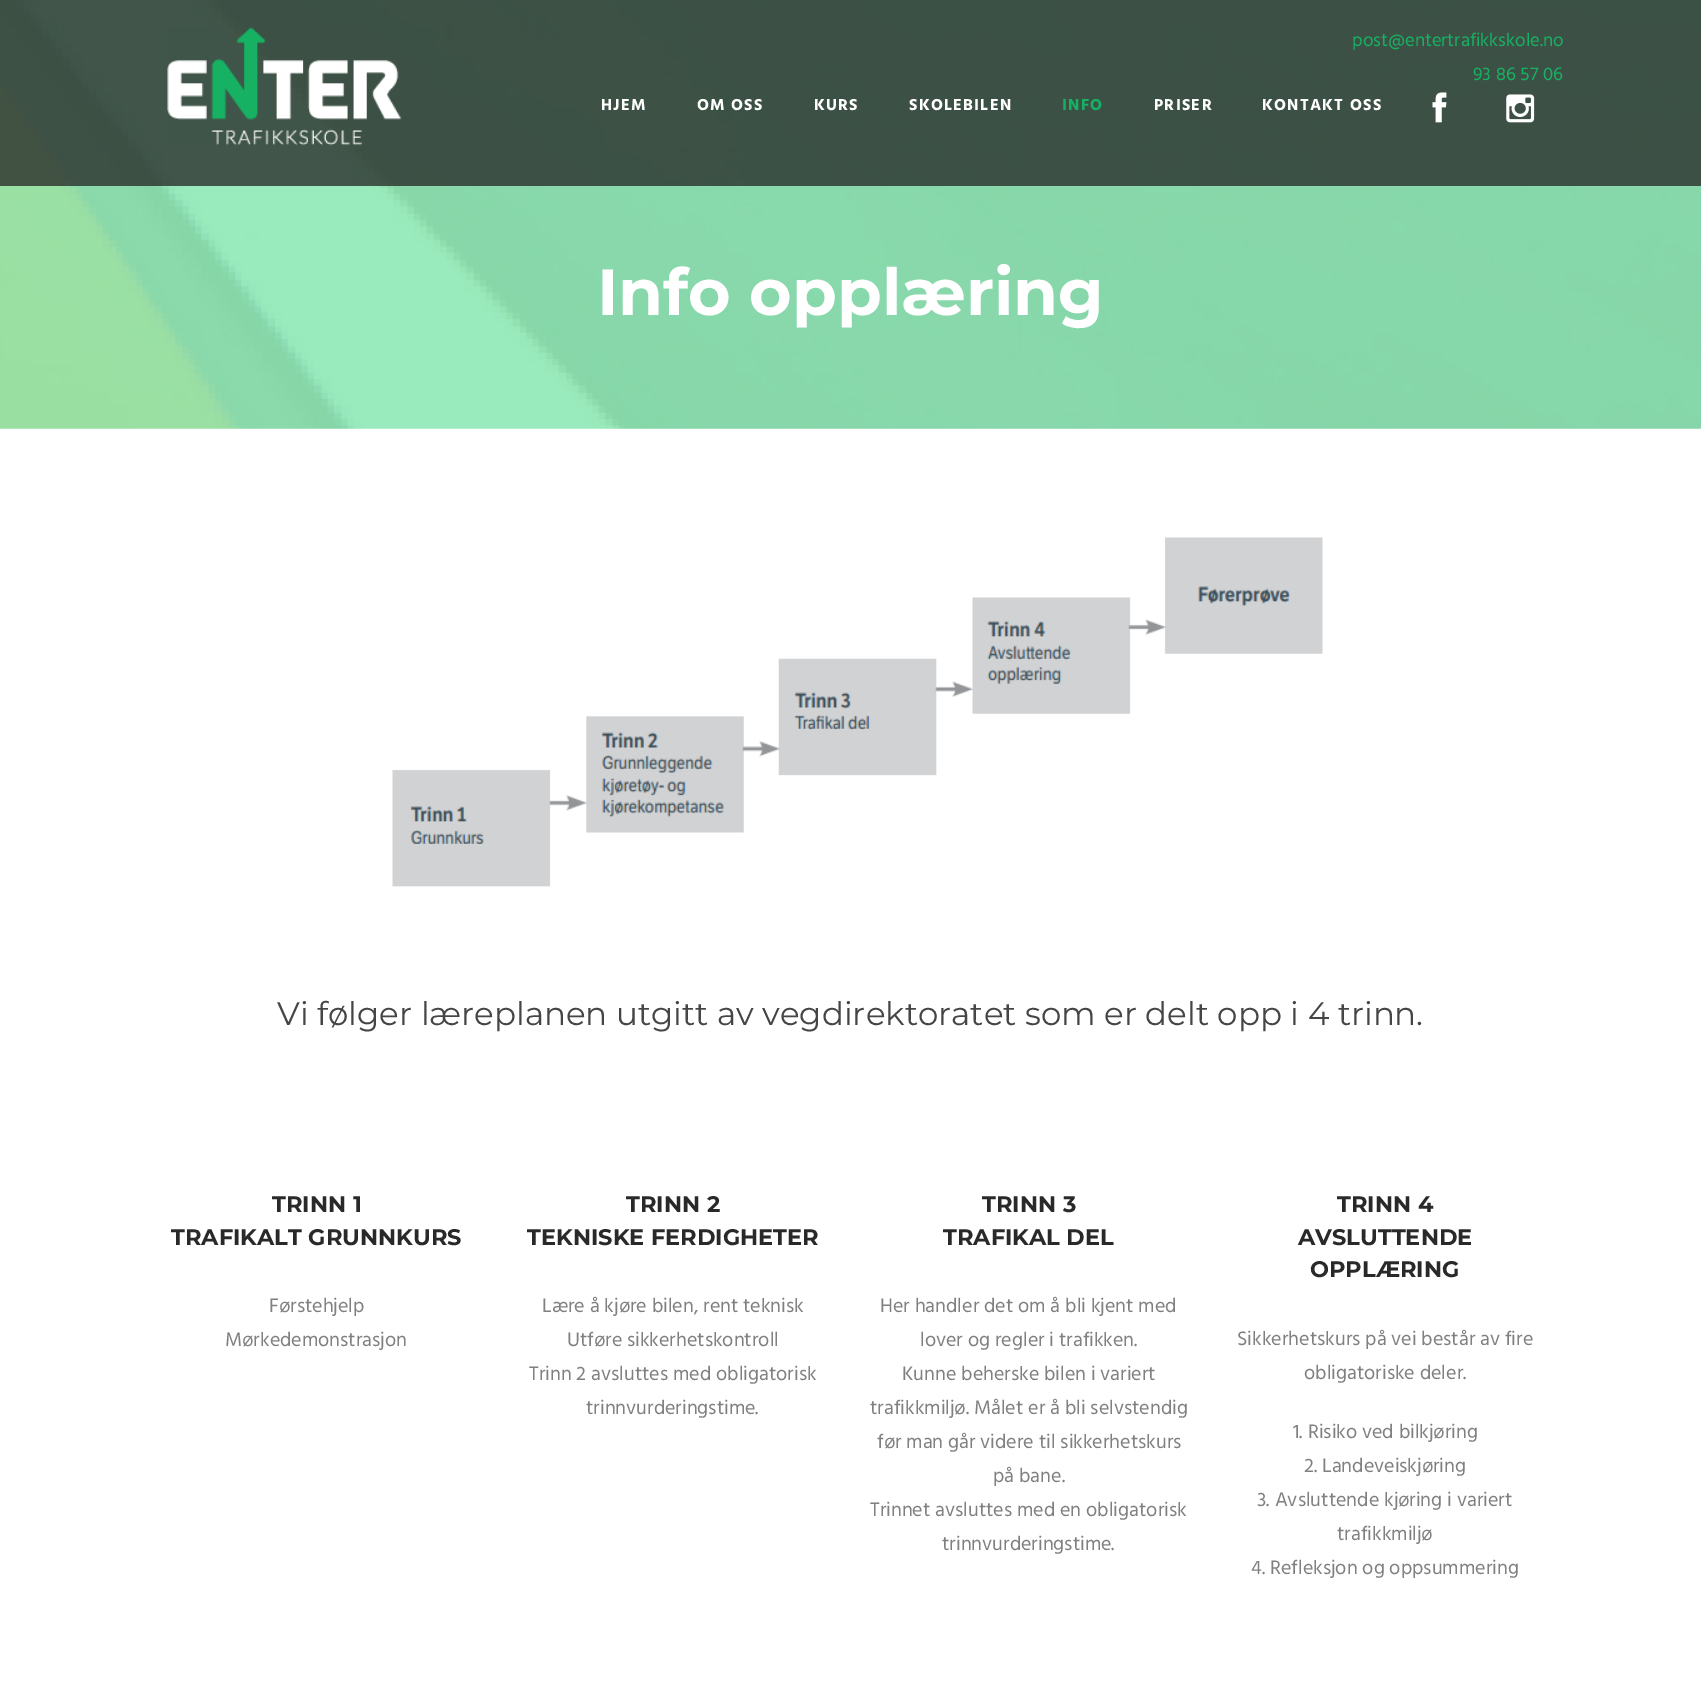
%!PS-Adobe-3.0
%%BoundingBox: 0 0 1701 1703
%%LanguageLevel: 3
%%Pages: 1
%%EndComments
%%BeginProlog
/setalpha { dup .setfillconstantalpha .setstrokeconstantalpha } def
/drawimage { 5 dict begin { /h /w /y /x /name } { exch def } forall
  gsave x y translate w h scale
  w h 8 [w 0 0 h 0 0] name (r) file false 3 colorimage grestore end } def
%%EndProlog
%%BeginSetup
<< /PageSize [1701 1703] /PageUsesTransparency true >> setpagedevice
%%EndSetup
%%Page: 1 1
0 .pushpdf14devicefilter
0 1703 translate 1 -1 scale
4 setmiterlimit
1 setgray
0 0 1701 1703 rectfill
(images/4.raw) 0 0 1701 429 drawimage
0.75 setalpha
0.137 setgray
0 0 1701 186 rectfill
1 setalpha
(images/1.raw) 167 27 235 119 drawimage
(images/2.raw) 1432 92 15 31 drawimage
(images/3.raw) 1506 94 29 29 drawimage
(images/5.raw) 392 537 931 350 drawimage
/Hind-Regular [18.75 0 0 -18.75 0 0] selectfont
0.086 0.694 0.384 setrgbcolor
1352 46 moveto (post@entertrafikkskole.no) show
1473 80 moveto (93 86 57 06) show
/Hind-Bold [16.25 0 0 -16.25 0 0] selectfont
1 setgray
601 110 moveto 1.25 0 (HJEM) ashow
697 110 moveto 1.25 0 (OM OSS) ashow
814 110 moveto 1.25 0 (KURS) ashow
909 110 moveto 1.25 0 (SKOLEBILEN) ashow
0.086 0.694 0.384 setrgbcolor
1062 110 moveto 1.25 0 (INFO) ashow
1 setgray
1154 110 moveto 1.25 0 (PRISER) ashow
1262 110 moveto 1.25 0 (KONTAKT OSS) ashow
/Montserrat-Bold [65 0 0 -65 0 0] selectfont
597 315 moveto (Info opplæring) show
/Montserrat-Regular [32.5 0 0 -32.5 0 0] selectfont
0.271 setgray
277 1025 moveto (Vi følger læreplanen utgitt av vegdirektoratet som er delt opp i 4 trinn.) show
/Montserrat-Bold [22.5 0 0 -22.5 0 0] selectfont
0.161 setgray
272 1212 moveto (TRINN 1) show
171 1245 moveto (TRAFIKALT GRUNNKURS) show
/Hind-Regular [20 0 0 -20 0 0] selectfont
0.502 setgray
269 1312 moveto (Førstehjelp) show
225 1346 moveto (Mørkedemonstrasjon) show
/Montserrat-Bold [22.5 0 0 -22.5 0 0] selectfont
0.161 setgray
626 1212 moveto (TRINN 2) show
527 1245 moveto (TEKNISKE FERDIGHETER) show
/Hind-Regular [20 0 0 -20 0 0] selectfont
0.502 setgray
542 1312 moveto (Lære å kjøre bilen, rent teknisk) show
567 1346 moveto (Utføre sikkerhetskontroll) show
529 1380 moveto (Trinn 2 avsluttes med obligatorisk) show
586 1414 moveto (trinnvurderingstime.) show
/Montserrat-Bold [22.5 0 0 -22.5 0 0] selectfont
0.161 setgray
982 1212 moveto (TRINN 3) show
943 1245 moveto (TRAFIKAL DEL) show
/Hind-Regular [20 0 0 -20 0 0] selectfont
0.502 setgray
880 1312 moveto (Her handler det om å bli kjent med) show
920 1346 moveto (lover og regler i trafikken.) show
902 1380 moveto (Kunne beherske bilen i variert) show
870 1414 moveto (trafikkmiljø. Målet er å bli selvstendig) show
877 1448 moveto (før man går videre til sikkerhetskurs) show
993 1482 moveto (på bane.) show
870 1516 moveto (Trinnet avsluttes med en obligatorisk) show
942 1550 moveto (trinnvurderingstime.) show
/Montserrat-Bold [22.5 0 0 -22.5 0 0] selectfont
0.161 setgray
1337 1212 moveto (TRINN 4) show
1298 1245 moveto (AVSLUTTENDE) show
1310 1277 moveto (OPPLÆRING) show
/Hind-Regular [20 0 0 -20 0 0] selectfont
0.502 setgray
1237 1345 moveto (Sikkerhetskurs på vei består av fire) show
1304 1379 moveto (obligatoriske deler.) show
1293 1438 moveto (1. Risiko ved bilkjøring) show
1304 1472 moveto (2. Landeveiskjøring) show
1257 1506 moveto (3. Avsluttende kjøring i variert) show
1337 1540 moveto (trafikkmiljø) show
1251 1574 moveto (4. Refleksjon og oppsummering) show
.poppdf14devicefilter showpage
%%EOF
